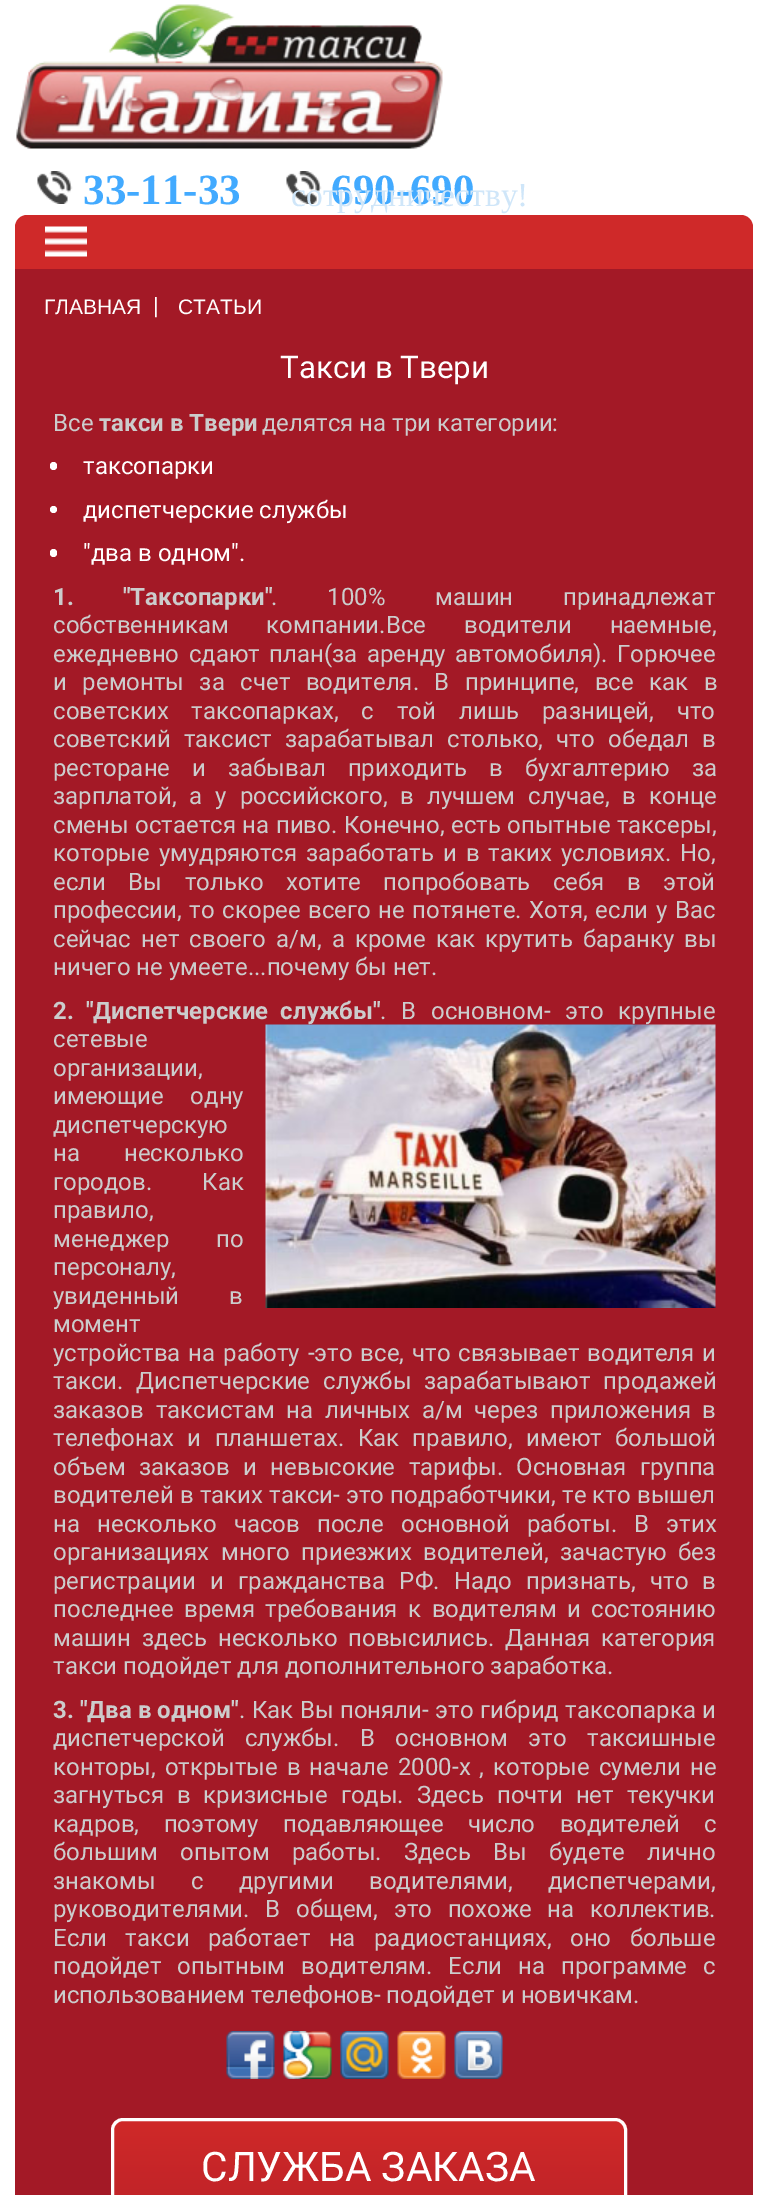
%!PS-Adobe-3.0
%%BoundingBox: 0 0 768 2195
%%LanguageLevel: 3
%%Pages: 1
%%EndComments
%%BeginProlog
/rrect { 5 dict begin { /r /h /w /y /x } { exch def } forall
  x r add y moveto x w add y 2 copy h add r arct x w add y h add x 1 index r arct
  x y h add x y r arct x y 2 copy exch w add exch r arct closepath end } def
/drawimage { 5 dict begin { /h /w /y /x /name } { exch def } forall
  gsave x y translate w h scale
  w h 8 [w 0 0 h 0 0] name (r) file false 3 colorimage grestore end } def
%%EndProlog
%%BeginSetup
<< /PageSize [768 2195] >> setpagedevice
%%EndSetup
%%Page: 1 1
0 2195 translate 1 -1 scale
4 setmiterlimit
1 setgray
0 0 768 2195 rectfill
(images/1.raw) 16 4 427 145 drawimage
(images/2.raw) 37 171 36 33 drawimage
(images/3.raw) 286 171 36 33 drawimage
0.812 0.161 0.161 setrgbcolor
newpath 27 215 moveto 741 215 lineto 747.5 215 753 220.5 753 227 curveto 753 269 lineto 15 269 lineto 15 227 lineto 15 220.5 20.5 215 27 215 curveto closepath fill
(images/4.raw) 45 226 42 31 drawimage
0.639 0.098 0.149 setrgbcolor
15 269 738 1926 rectfill
(images/5.raw) 226 2031 49 48 drawimage
(images/6.raw) 283 2031 49 48 drawimage
(images/7.raw) 340 2031 49 48 drawimage
(images/8.raw) 397 2031 49 48 drawimage
(images/9.raw) 454 2031 49 48 drawimage
gsave
111 2118 516 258 12 rrect clip newpath
gsave newpath 111 2121 moveto 627 2121 lineto 627 2195 lineto 111 2195 lineto closepath clip newpath
<< /ShadingType 2 /ColorSpace /DeviceRGB /Coords [369 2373 369 2121] /Extend [true true] /Function << /FunctionType 2 /Domain [0 1] /C0 [0.639 0.098 0.149] /C1 [0.812 0.161 0.161] /N 1 >> >> shfill grestore
grestore
1 setgray
3 setlinewidth
112.5 2119.5 513 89 10.5 rrect stroke
50 462 7 8 3.5 rrect fill
newpath 53.5 509.5 3.5 0 360 arc closepath fill
50 549 7 8 3.5 rrect fill
(images/10.raw) 265 1024 451 284 drawimage
/LiberationSerif-Bold [43 0 0 -43 0 0] selectfont
0.259 0.667 1 setrgbcolor
83 204 moveto (33-11-33) show
331 204 moveto (690-690) show
/LiberationSerif-Regular [33.5 0 0 -33.5 0 0] selectfont
0.812 0.902 0.976 setrgbcolor
291 206 moveto (сотрудничеству!) show
/Roboto-Regular [40.75 0 0 -40.75 0 0] selectfont
1 setgray
201 2181 moveto (СЛУЖБА ЗАКАЗА) show
/LiberationSans-Regular [21 0 0 -21 0 0] selectfont
44 314 moveto (ГЛАВНАЯ) show
/Roboto-Regular [24 0 0 -24 0 0] selectfont
153 314 moveto (|) show
/LiberationSans-Regular [21 0 0 -21 0 0] selectfont
178 314 moveto (СТАТЬИ) show
/Roboto-Regular [31.25 0 0 -31.25 0 0] selectfont
280 378 moveto (Такси в Твери) show
/Roboto-Regular [24 0 0 -24 0 0] selectfont
0.8 setgray
53 431 moveto (Все) show
/Roboto-Bold [24 0 0 -24 0 0] selectfont
99 431 moveto (такси в Твери) show
/Roboto-Regular [24 0 0 -24 0 0] selectfont
262 431 moveto (делятся на три категории:) show
1 setgray
83 474 moveto (таксопарки) show
83 518 moveto (диспетчерские службы) show
83 561 moveto ("два в одном".) show
/Roboto-Bold [24 0 0 -24 0 0] selectfont
0.8 setgray
53 605 moveto 43 0 32 (1. "Таксопарки") widthshow
/Roboto-Regular [24 0 0 -24 0 0] selectfont
271 605 moveto 44 0 32 (. 100% машин принадлежат) widthshow
53 633 moveto 32 0 32 (собственникам компании.Все водители наемные,) widthshow
53 662 moveto 3.5 0 32 (ежедневно сдают план\(за аренду автомобиля\). Горючее) widthshow
53 690 moveto 9.5 0 32 (и ремонты за счет водителя. В принципе, все как в) widthshow
53 719 moveto 17 0 32 (советских таксопарках, с той лишь разницей, что) widthshow
53 747 moveto 7.25 0 32 (советский таксист зарабатывал столько, что обедал в) widthshow
53 776 moveto 16 0 32 (ресторане и забывал приходить в бухгалтерию за) widthshow
53 804 moveto 7 0 32 (зарплатой, а у российского, в лучшем случае, в конце) widthshow
53 833 moveto 0.5 0 32 (смены остается на пиво. Конечно, есть опытные таксеры,) widthshow
53 861 moveto 3 0 32 (которые умудряются заработать и в таких условиях. Но,) widthshow
53 890 moveto 16.5 0 32 (если Вы только хотите попробовать себя в этой) widthshow
53 918 moveto 1.75 0 32 (профессии, то скорее всего) widthshow
378 918 moveto 1.75 0 32 (не потянете. Хотя, если у Вас) widthshow
53 947 moveto 4.25 0 32 (сейчас нет своего а/м, а кроме как крутить баранку вы) widthshow
53 975 moveto (ничего не умеете...почему бы нет.) show
/Roboto-Bold [24 0 0 -24 0 0] selectfont
53 1019 moveto 6 0 32 (2. "Диспетчерские службы") widthshow
/Roboto-Regular [24 0 0 -24 0 0] selectfont
380 1019 moveto (.) show
401 1019 moveto 9 0 32 (В основном- это крупные) widthshow
53 1047 moveto (сетевые) show
53 1076 moveto (организации,) show
53 1104 moveto 21 0 32 (имеющие одну) widthshow
53 1133 moveto (диспетчерскую) show
53 1161 moveto 38 0 32 (на несколько) widthshow
53 1190 moveto 44 0 32 (городов. Как) widthshow
53 1218 moveto (правило,) show
53 1247 moveto 41 0 32 (менеджер по) widthshow
53 1275 moveto (персоналу,) show
53 1304 moveto 44 0 32 (увиденный в) widthshow
53 1332 moveto (момент) show
53 1361 moveto 2 0 32 (устройства на работу -это все, что связывает водителя и) widthshow
53 1389 moveto 7 0 32 (такси. Диспетчерские службы зарабатывают продажей) widthshow
53 1418 moveto 5.75 0 32 (заказов таксистам на личных а/м через приложения в) widthshow
53 1446 moveto 7.5 0 32 (телефонах и планшетах. Как правило, имеют большой) widthshow
53 1475 moveto 7.5 0 32 (объем заказов и невысокие тарифы.) widthshow
516 1475 moveto 7.5 0 32 (Основная группа) widthshow
53 1503 moveto 0.25 0 32 (водителей в таких такси- это подработчики, те кто вышел) widthshow
53 1532 moveto 11.25 0 32 (на несколько часов после основной работы. В этих) widthshow
53 1560 moveto 5.5 0 32 (организациях много приезжих водителей, зачастую без) widthshow
53 1589 moveto 8.25 0 32 (регистрации и гражданства РФ. Надо признать, что в) widthshow
53 1617 moveto 4.5 0 32 (последнее время требования к водителям и состоянию) widthshow
53 1646 moveto 5 0 32 (машин здесь несколько повысились.) widthshow
505 1646 moveto 5 0 32 (Данная категория) widthshow
53 1674 moveto (такси подойдет для дополнительного заработка.) show
/Roboto-Bold [24 0 0 -24 0 0] selectfont
53 1718 moveto (3. "Два в одном") show
/Roboto-Regular [24 0 0 -24 0 0] selectfont
239 1718 moveto (.) show
252 1718 moveto 0.5 0 32 (Как Вы поняли- это гибрид таксопарка и) widthshow
53 1746 moveto 14.5 0 32 (диспетчерской службы. В основном это таксишные) widthshow
53 1775 moveto 3 0 32 (конторы, открытые в начале 2000-х , которые сумели не) widthshow
53 1803 moveto 7 0 32 (загнуться в кризисные годы. Здесь почти нет текучки) widthshow
53 1832 moveto 18.5 0 32 (кадров, поэтому подавляющее число водителей с) widthshow
53 1860 moveto 16.25 0 32 (большим опытом работы. Здесь Вы будете лично) widthshow
53 1889 moveto 29.5 0 32 (знакомы с другими водителями, диспетчерами,) widthshow
53 1917 moveto 9.75 0 32 (руководителями. В общем, это похоже на коллектив.) widthshow
53 1946 moveto 12.5 0 32 (Если такси работает на радиостанциях, оно больше) widthshow
53 1974 moveto 10 0 32 (подойдет опытным водителям. Если на программе с) widthshow
53 2003 moveto (использованием телефонов- подойдет и новичкам.) show
showpage
%%EOF
